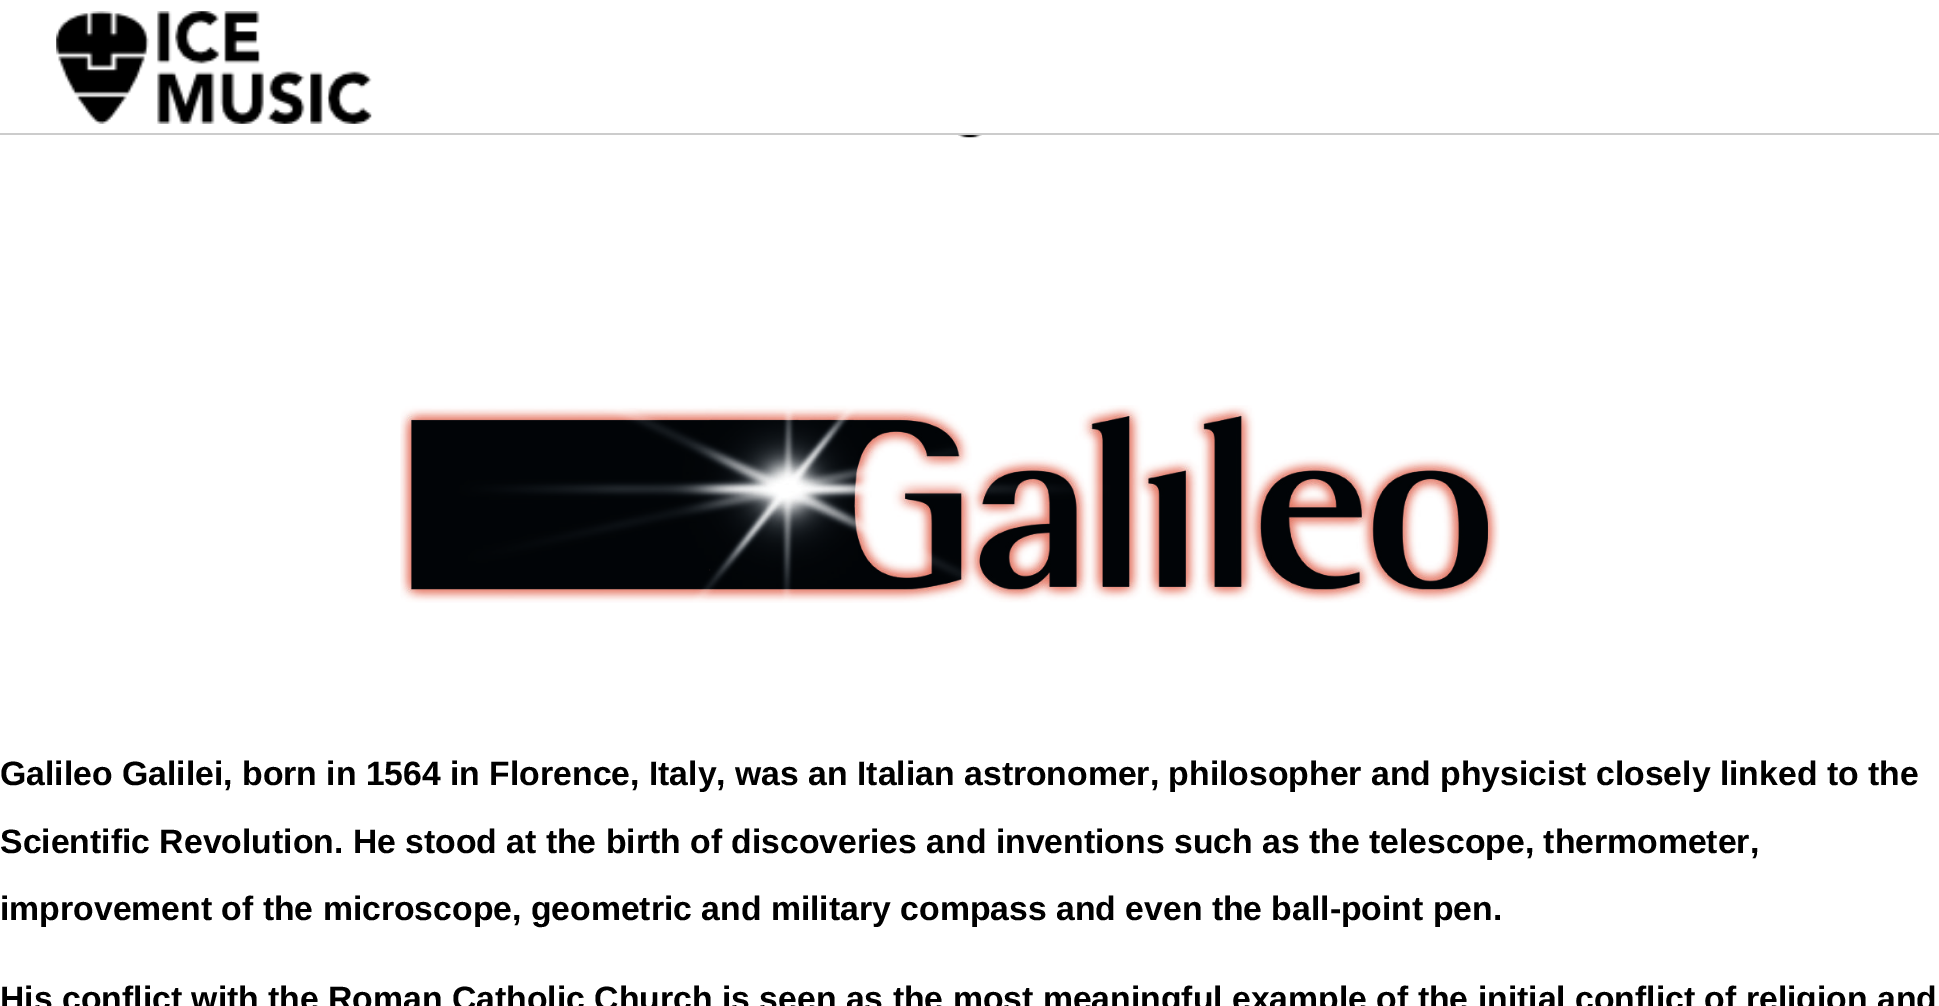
%!PS-Adobe-3.0
%%BoundingBox: 0 0 1939 1006
%%LanguageLevel: 3
%%Pages: 1
%%EndComments
%%BeginProlog
/drawimage { 5 dict begin { /h /w /y /x /name } { exch def } forall
  gsave x y translate w h scale
  w h 8 [w 0 0 h 0 0] name (r) file false 3 colorimage grestore end } def
%%EndProlog
%%BeginSetup
<< /PageSize [1939 1006] >> setpagedevice
%%EndSetup
%%Page: 1 1
0 1006 translate 1 -1 scale
4 setmiterlimit
1 setgray
0 0 1939 1006 rectfill
(images/1.raw) 56 11 316 113 drawimage
0.8 setgray
0 133 1939 2 rectfill
(images/2.raw) 958 135 24 3 drawimage
(images/3.raw) 400 405 1100 198 drawimage
/LiberationSans-Bold [33.75 0 0 -33.75 0 0] selectfont
0 setgray
0 785 moveto (Galileo Galilei, born in 1564 in Florence, Italy, was an Italian astronomer, philosopher and physicist closely linked to the) show
0 853 moveto (Scientific Revolution. He stood at the birth of discoveries and inventions such as the telescope, thermometer,) show
0 920 moveto (improvement of the microscope, geometric and military compass and even the ball-point pen.) show
0 1010 moveto (His conflict with the Roman Catholic Church is seen as the most meaningful example of the initial conflict of religion and) show
showpage
%%EOF
